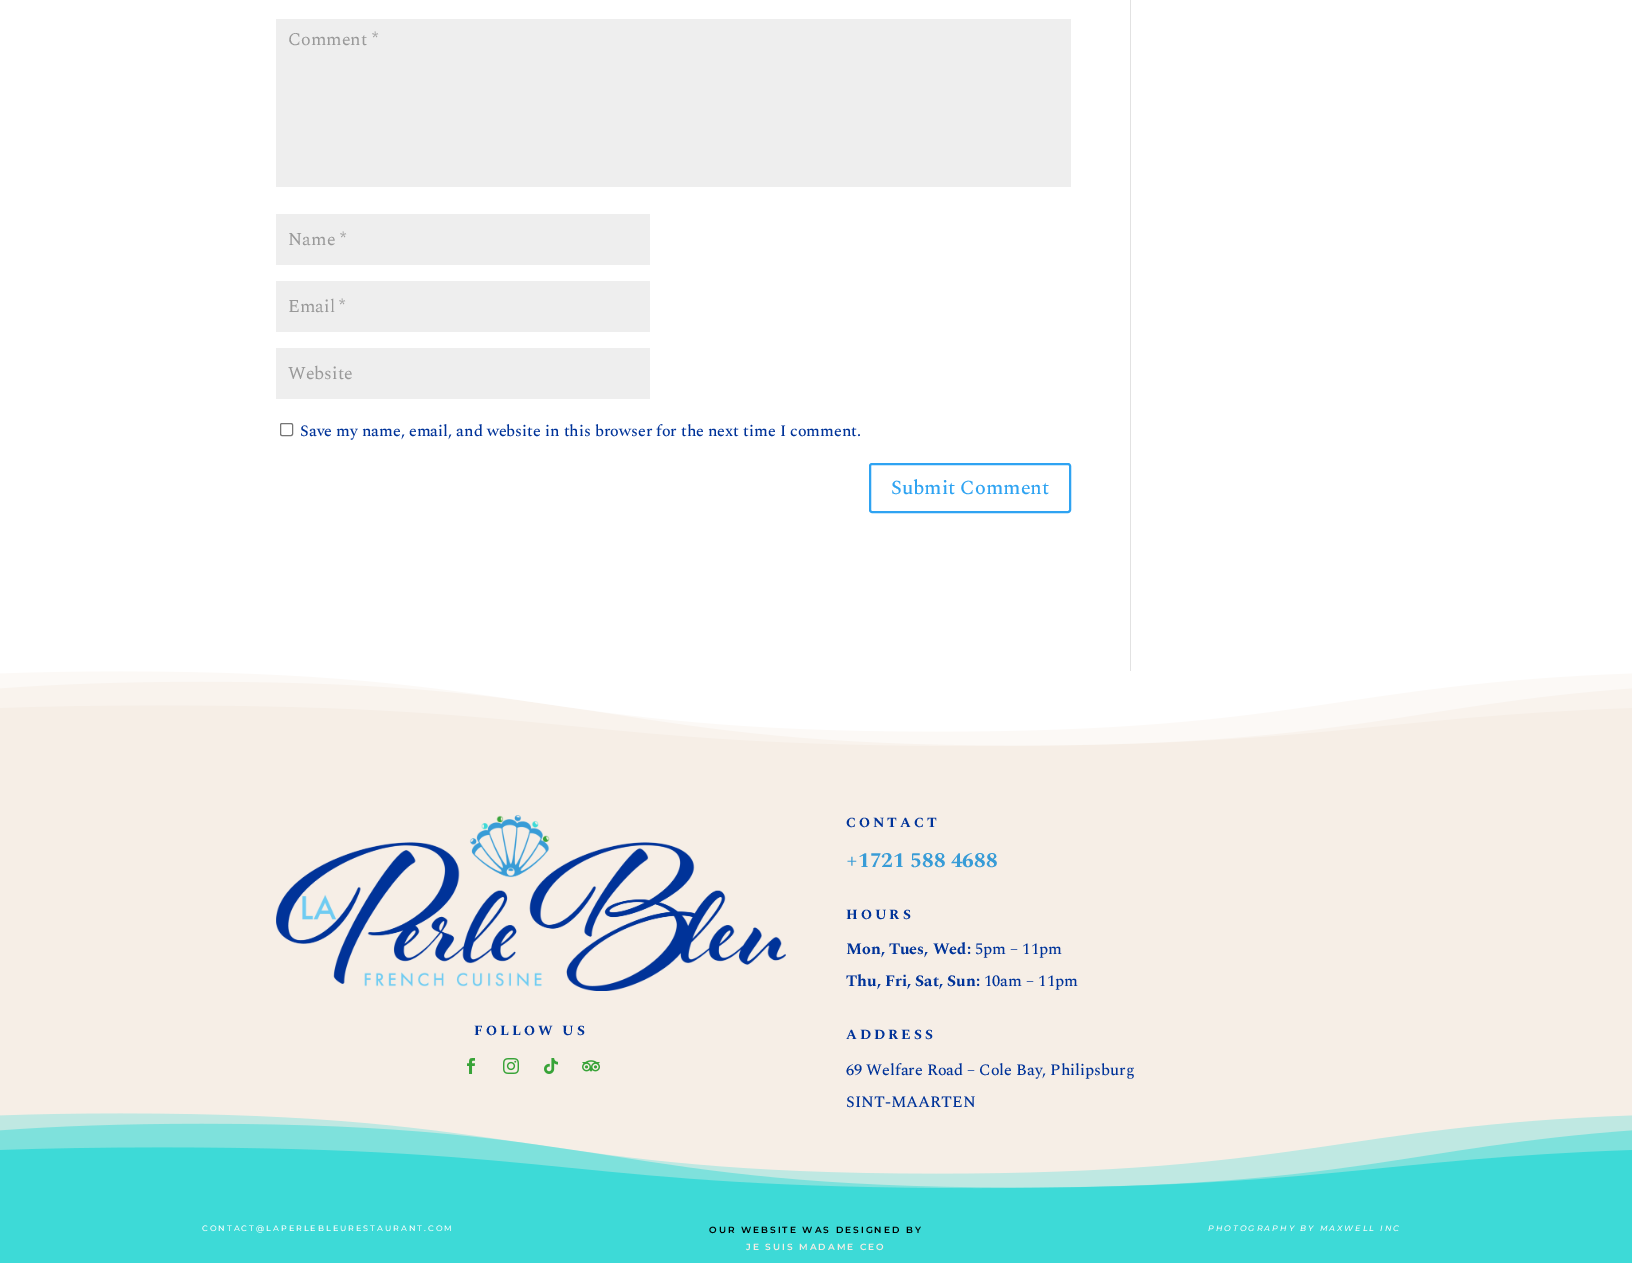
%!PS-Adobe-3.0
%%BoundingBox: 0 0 1632 1263
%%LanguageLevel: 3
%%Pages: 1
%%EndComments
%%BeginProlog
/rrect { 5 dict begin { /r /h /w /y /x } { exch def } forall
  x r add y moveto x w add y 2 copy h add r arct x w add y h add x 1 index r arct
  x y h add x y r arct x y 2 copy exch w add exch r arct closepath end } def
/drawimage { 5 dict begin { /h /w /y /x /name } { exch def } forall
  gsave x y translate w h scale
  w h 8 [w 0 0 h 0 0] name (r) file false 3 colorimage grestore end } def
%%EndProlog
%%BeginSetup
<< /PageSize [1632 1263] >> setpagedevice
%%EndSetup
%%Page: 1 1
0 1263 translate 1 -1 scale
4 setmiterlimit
1 setgray
0 0 1632 1263 rectfill
0.933 setgray
276 19 795 168 rectfill
276 214 374 51 rectfill
276 281 374 51 rectfill
276 348 374 51 rectfill
0.463 setgray
280.5 423.5 12 12 1.5 rrect stroke
0.18 0.639 0.949 setrgbcolor
2 setlinewidth
870 464 200 48 2 rrect stroke
0.886 setgray
1130 0 1 671 rectfill
0.965 0.933 0.902 setrgbcolor
0 671 1632 518 rectfill
(images/1.raw) 0 671 1632 75 drawimage
(images/2.raw) 276 815 510 176 drawimage
(images/3.raw) 467 1058 8 16 drawimage
(images/4.raw) 503 1058 16 16 drawimage
(images/5.raw) 544 1058 14 16 drawimage
(images/6.raw) 582 1060 18 12 drawimage
(images/7.raw) 0 1113 1632 100 drawimage
0.239 0.855 0.843 setrgbcolor
0 1213 1632 50 rectfill
/Spectral-Regular [18 0 0 -18 0 0] selectfont
0.6 setgray
288 45 moveto (Comment *) show
288 245 moveto (Name *) show
288 312 moveto (Email *) show
288 379 moveto (Website) show
/Spectral-Medium [16 0 0 -16 0 0] selectfont
0 0.2 0.6 setrgbcolor
300 436 moveto (Save my name, email, and website in this browser for the next time I comment.) show
/Spectral-Medium [20 0 0 -20 0 0] selectfont
0.18 0.639 0.949 setrgbcolor
891 494 moveto (Submit Comment) show
/Spectral-Bold [14 0 0 -14 0 0] selectfont
0 0.2 0.6 setrgbcolor
474 1035 moveto 3 0 (FOLLOW US) ashow
846 827 moveto 3 0 (CONTACT) ashow
/Spectral-Bold [21 0 0 -21 0 0] selectfont
0.22 0.612 0.843 setrgbcolor
846 867 moveto (+1721 588 4688) show
/Spectral-Bold [14 0 0 -14 0 0] selectfont
0 0.2 0.6 setrgbcolor
846 919 moveto 3 0 (HOURS) ashow
/Spectral-Bold [16 0 0 -16 0 0] selectfont
846 954 moveto (Mon, Tues, Wed:) show
/Spectral-Medium [16 0 0 -16 0 0] selectfont
975 954 moveto (5pm – 11pm) show
/Spectral-Bold [16 0 0 -16 0 0] selectfont
846 986 moveto (Thu, Fri, Sat, Sun:) show
/Spectral-Medium [16 0 0 -16 0 0] selectfont
984 986 moveto (10am – 11pm) show
/Spectral-Bold [14 0 0 -14 0 0] selectfont
846 1039 moveto 3 0 (ADDRESS) ashow
/Spectral-Medium [16 0 0 -16 0 0] selectfont
846 1075 moveto (69 Welfare Road – Cole Bay, Philipsburg) show
846 1107 moveto (SINT-MAARTEN) show
/Montserrat-Thin [8 0 0 -8 0 0] selectfont
1 setgray
202 1231 moveto 2 0 (CONTACT@LAPERLEBLEURESTAURANT.COM) ashow
/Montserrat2-Thin [9 0 0 -9 0 0] selectfont
0 setgray
709 1233 moveto 2 0 (OUR WEBSITE WAS DESIGNED BY) ashow
0.965 0.933 0.902 setrgbcolor
746 1250 moveto 2 0 (JE SUIS MADAME CEO) ashow
/Montserrat-ThinItalic [8 0 0 -8 0 0] selectfont
1 setgray
1208 1231 moveto 2 0 (PHOTOGRAPHY BY MAXWELL INC) ashow
showpage
%%EOF
